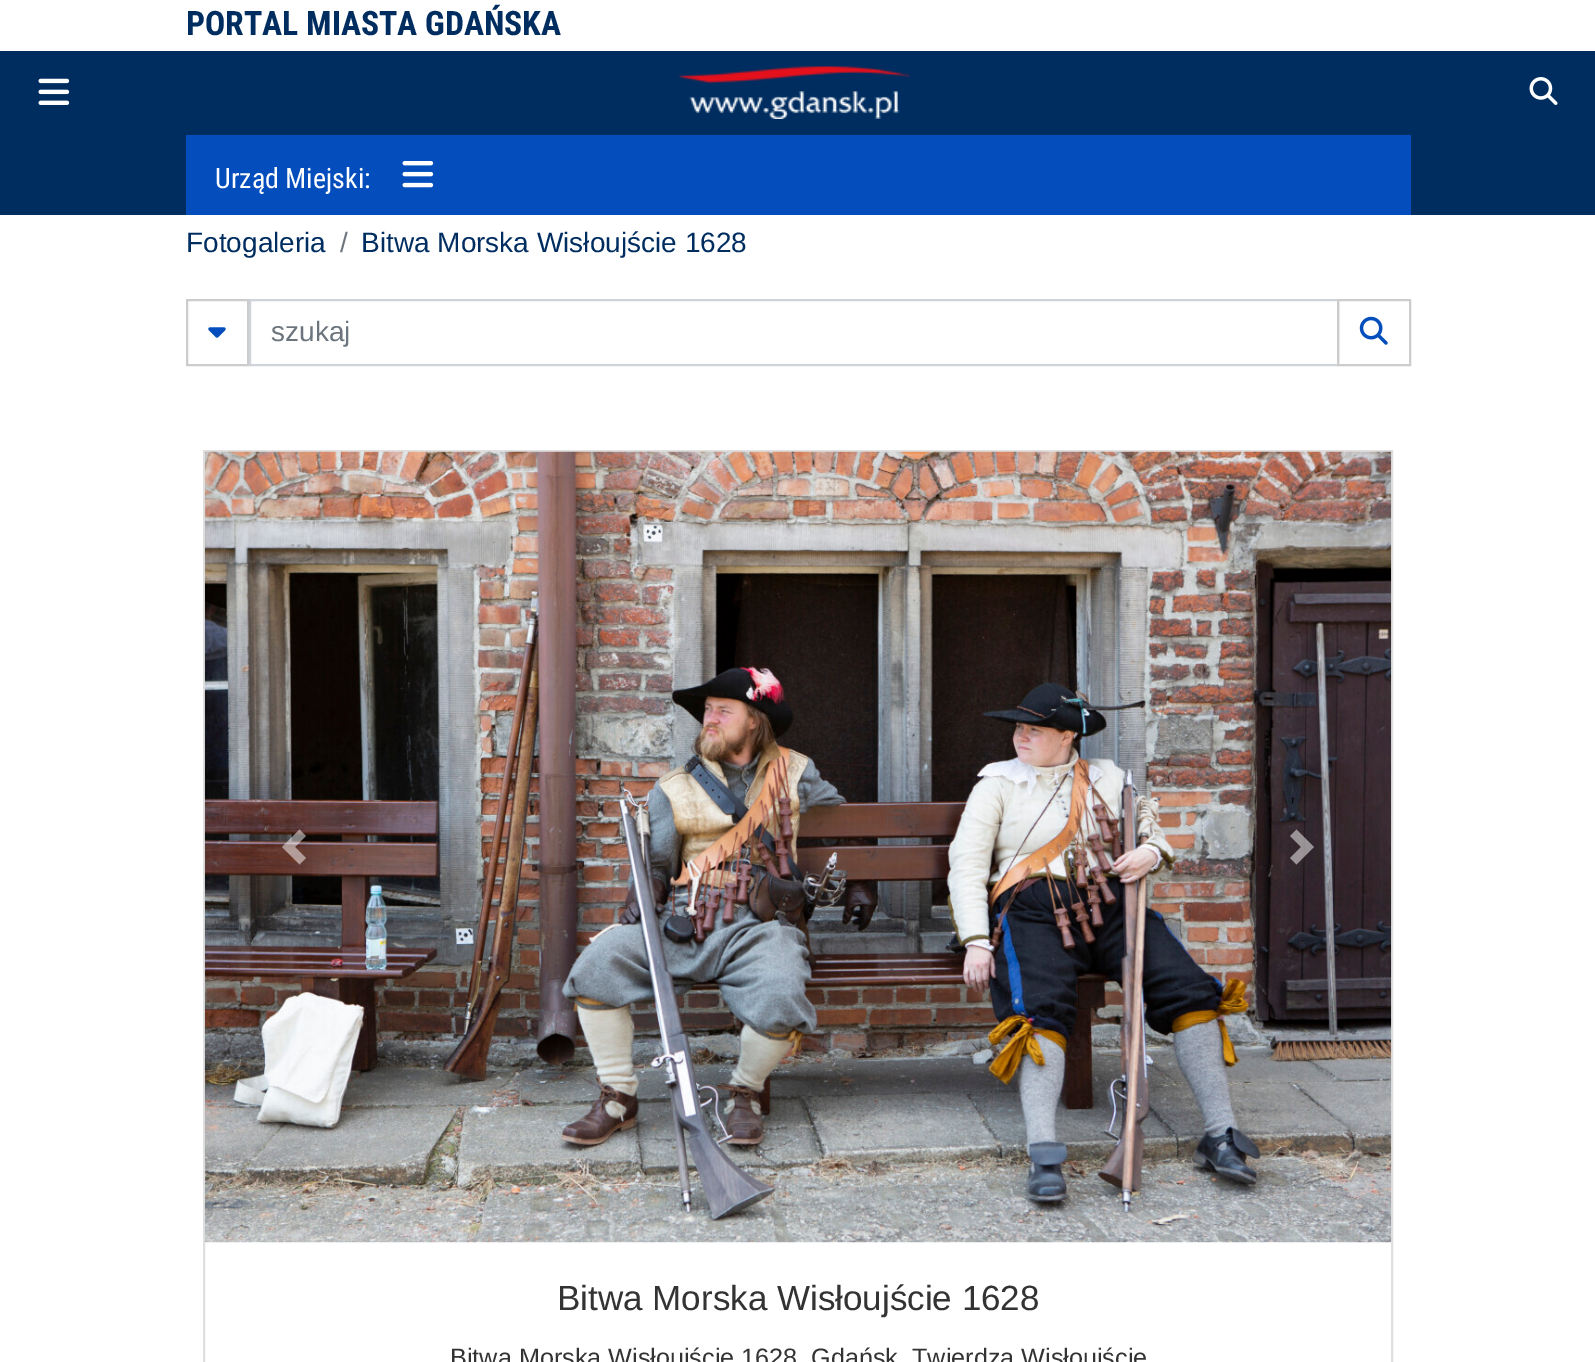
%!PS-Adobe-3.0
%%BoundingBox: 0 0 1595 1362
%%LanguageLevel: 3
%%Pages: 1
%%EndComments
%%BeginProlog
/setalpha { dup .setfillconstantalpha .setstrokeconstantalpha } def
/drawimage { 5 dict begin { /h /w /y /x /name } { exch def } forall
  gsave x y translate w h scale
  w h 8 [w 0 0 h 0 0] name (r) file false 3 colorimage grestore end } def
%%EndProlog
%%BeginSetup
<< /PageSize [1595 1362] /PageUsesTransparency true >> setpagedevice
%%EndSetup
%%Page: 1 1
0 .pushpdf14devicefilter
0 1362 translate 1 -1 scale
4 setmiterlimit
1 setgray
0 0 1595 1362 rectfill
0 0.176 0.376 setrgbcolor
0 51 1595 164 rectfill
(images/1.raw) 38 78 32 27 drawimage
(images/2.raw) 679 66 231 53 drawimage
(images/3.raw) 1529 77 29 28 drawimage
0.012 0.306 0.737 setrgbcolor
186 135 1225 80 rectfill
(images/4.raw) 402 161 32 27 drawimage
0.8 setgray
2 setlinewidth
187 300 61 65 rectstroke
(images/5.raw) 208 327 18 11 drawimage
0.808 0.831 0.855 setrgbcolor
250 300 1088 65 rectstroke
0.8 setgray
1338 300 72 65 rectstroke
(images/6.raw) 1359 316 29 29 drawimage
0.875 setgray
204 451 1188 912 rectstroke
(images/7.raw) 204 451 1188 792 drawimage
0.5 setalpha
1 setgray
newpath 299.5 829.5 moveto 282 847 lineto 299.5 864.5 lineto 306 858 lineto 295 847 lineto 306 836 lineto closepath fill
newpath 1296.5 829.5 moveto 1290 836 lineto 1301 847 lineto 1290 858 lineto 1296.5 864.5 lineto 1314 847 lineto closepath fill
/RobotoCondensed-Bold [33.6 0 0 -33.6 0 0] selectfont
1 setalpha
0 0.176 0.376 setrgbcolor
186 35 moveto (PORTAL MIASTA GDAŃSKA) show
/RobotoCondensed-Regular [28 0 0 -28 0 0] selectfont
1 setgray
215 188 moveto (Urząd Miejski:) show
/LiberationSans-Regular [28 0 0 -28 0 0] selectfont
0 0.176 0.376 setrgbcolor
186 252 moveto (Fotogaleria) show
0.424 0.459 0.49 setrgbcolor
340 252 moveto (/) show
0 0.176 0.376 setrgbcolor
361 252 moveto (Bitwa Morska Wisłoujście 1628) show
0.424 0.459 0.49 setrgbcolor
271 341 moveto (szukaj) show
/LiberationSans-Regular [35 0 0 -35 0 0] selectfont
0.2 setgray
557 1310 moveto (Bitwa Morska Wisłoujście 1628) show
/LiberationSans-Regular [25.2 0 0 -25.2 0 0] selectfont
450 1366 moveto (Bitwa Morska Wisłoujście 1628. Gdańsk, Twierdza Wisłoujście) show
.poppdf14devicefilter showpage
%%EOF
